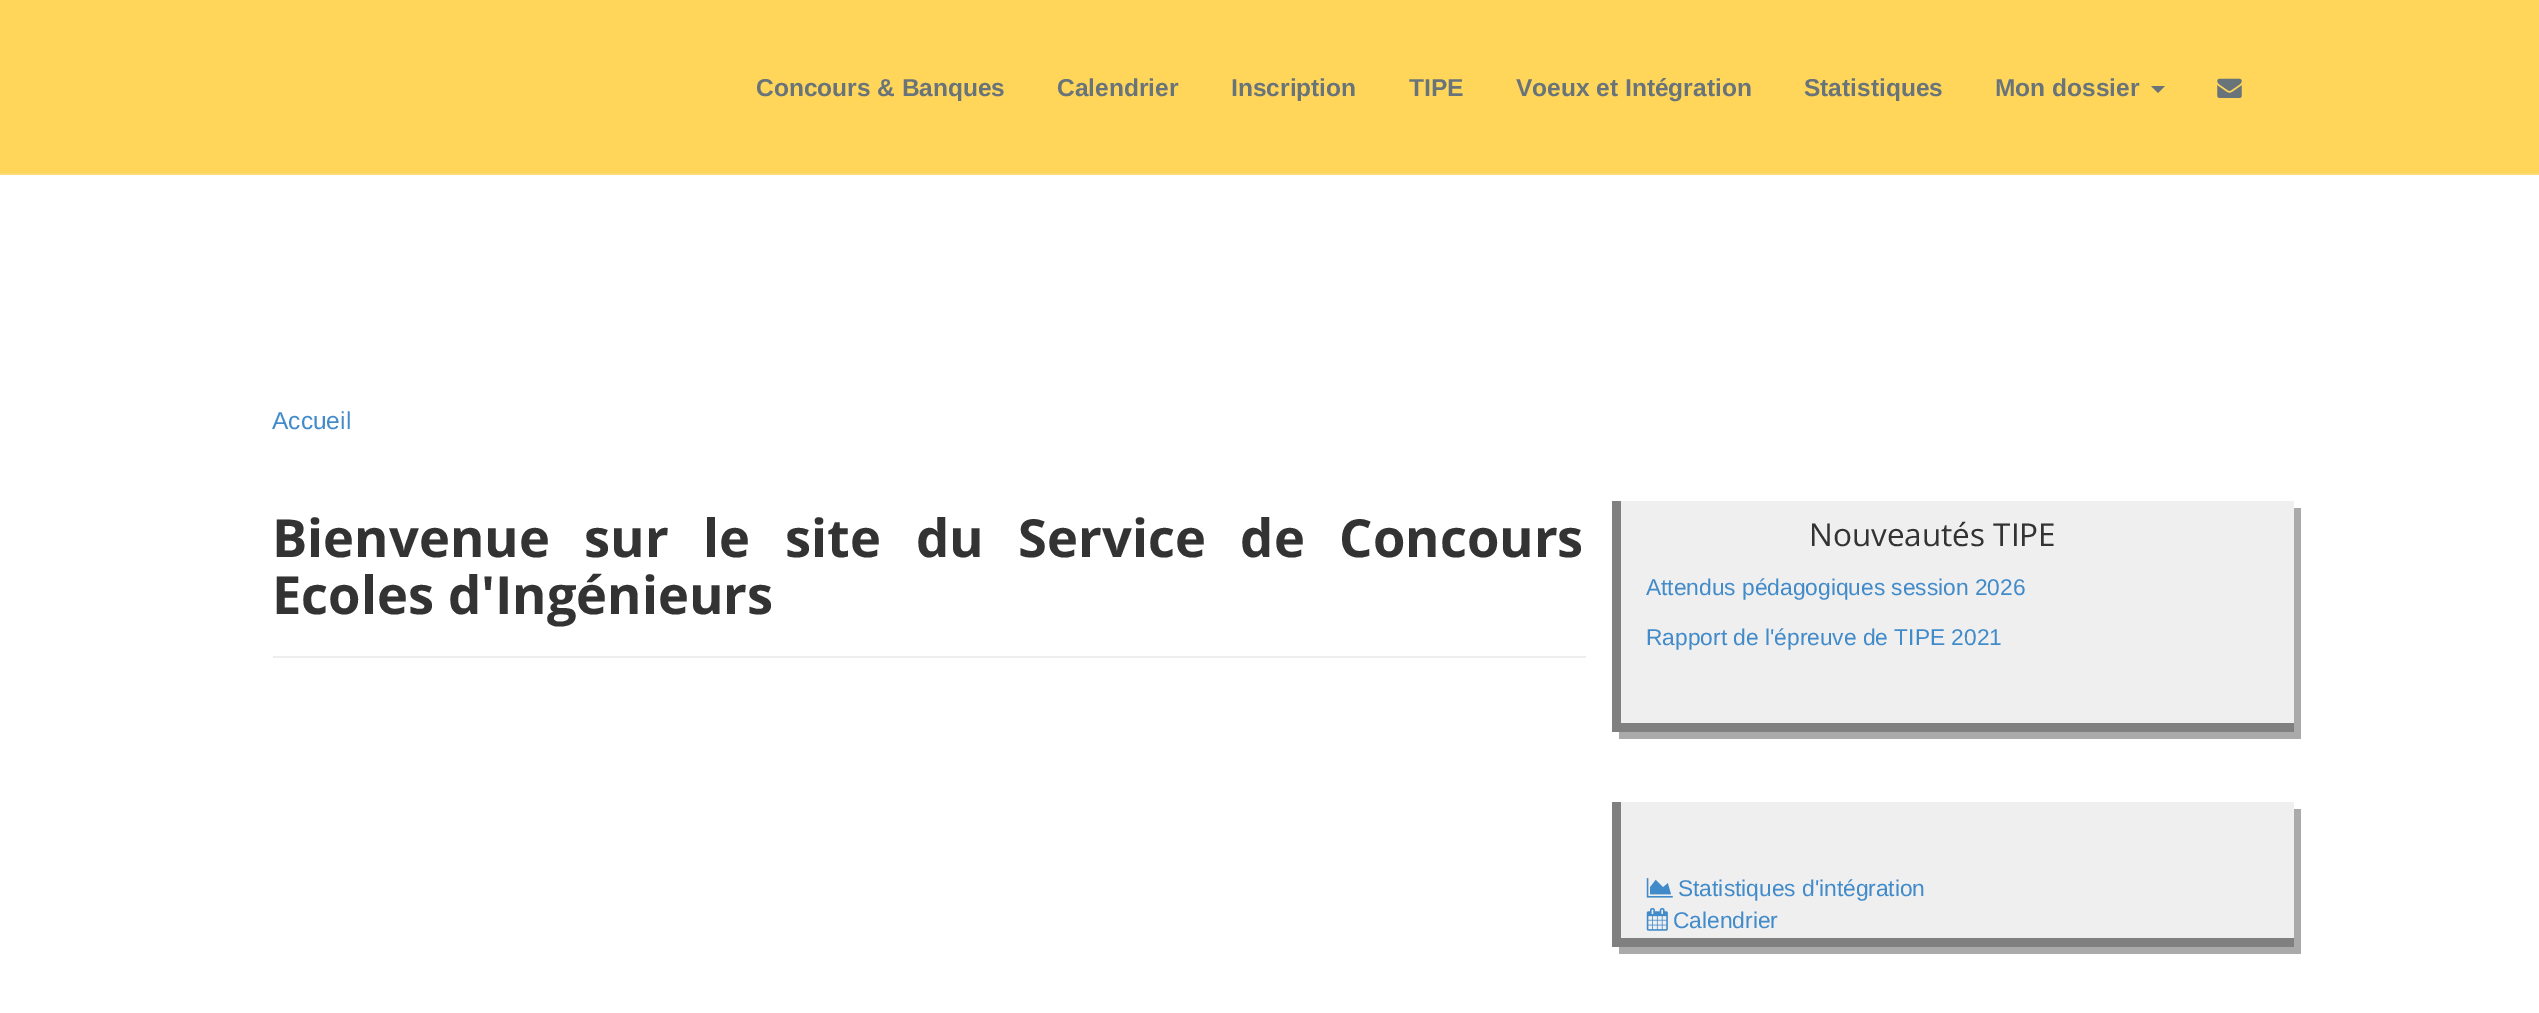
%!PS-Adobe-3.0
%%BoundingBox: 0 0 2539 1013
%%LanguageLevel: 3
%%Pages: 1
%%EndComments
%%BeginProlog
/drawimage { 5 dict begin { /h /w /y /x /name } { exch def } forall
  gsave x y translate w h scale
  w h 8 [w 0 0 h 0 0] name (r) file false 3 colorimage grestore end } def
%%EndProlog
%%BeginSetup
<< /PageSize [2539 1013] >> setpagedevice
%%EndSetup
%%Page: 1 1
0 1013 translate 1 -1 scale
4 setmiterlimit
1 setgray
0 0 2539 1013 rectfill
1 0.839 0.353 setrgbcolor
0 0 2539 173 rectfill
1 0.863 0.451 setrgbcolor
0 173 2539 2 rectfill
0.408 0.451 0.478 setrgbcolor
newpath 2151 86 moveto 2165 86 lineto 2158 93 lineto closepath fill
(images/1.raw) 2217 78 25 20 drawimage
0.933 setgray
273 656 1313 2 rectfill
0.667 setgray
newpath 1619 732 moveto 1619 739 lineto 2301 739 lineto 2301 508 lineto 2294 508 lineto 2294 732 lineto closepath fill
0.937 setgray
1621 501 673 222 rectfill
0.502 setgray
1621 723 673 9 rectfill
1612 501 9 231 rectfill
0.667 setgray
newpath 1619 947 moveto 1619 954 lineto 2301 954 lineto 2301 809 lineto 2294 809 lineto 2294 947 lineto closepath fill
0.937 setgray
1621 802 673 136 rectfill
0.502 setgray
1621 938 673 9 rectfill
1612 802 9 145 rectfill
(images/2.raw) 1646 878 27 20 drawimage
(images/3.raw) 1646 908 22 23 drawimage
/LiberationSans-Bold [24.5 0 0 -24.5 0 0] selectfont
0.408 0.451 0.478 setrgbcolor
756 96 moveto (Concours & Banques) show
1057 96 moveto (Calendrier) show
1231 96 moveto (Inscription) show
1409 96 moveto (TIPE) show
1516 96 moveto (Voeux et Intégration) show
1804 96 moveto (Statistiques) show
1995 96 moveto (Mon dossier) show
/LiberationSans-Regular [24.5 0 0 -24.5 0 0] selectfont
0.259 0.545 0.792 setrgbcolor
272 429 moveto (Accueil) show
/OpenSans-Bold [52.5 0 0 -52.5 0 0] selectfont
0.2 setgray
272 557 moveto 21 0 32 (Bienvenue sur le site du Service de Concours) widthshow
272 614 moveto (Ecoles d'Ingénieurs) show
/OpenSans-Regular [31.5 0 0 -31.5 0 0] selectfont
1809 546 moveto (Nouveautés TIPE) show
/LiberationSans-Regular [22.75 0 0 -22.75 0 0] selectfont
0.259 0.545 0.792 setrgbcolor
1646 595 moveto (Attendus pédagogiques session 2026) show
1646 645 moveto (Rapport de l'épreuve de TIPE 2021) show
1678 896 moveto (Statistiques d'intégration) show
1673 928 moveto (Calendrier) show
showpage
%%EOF
